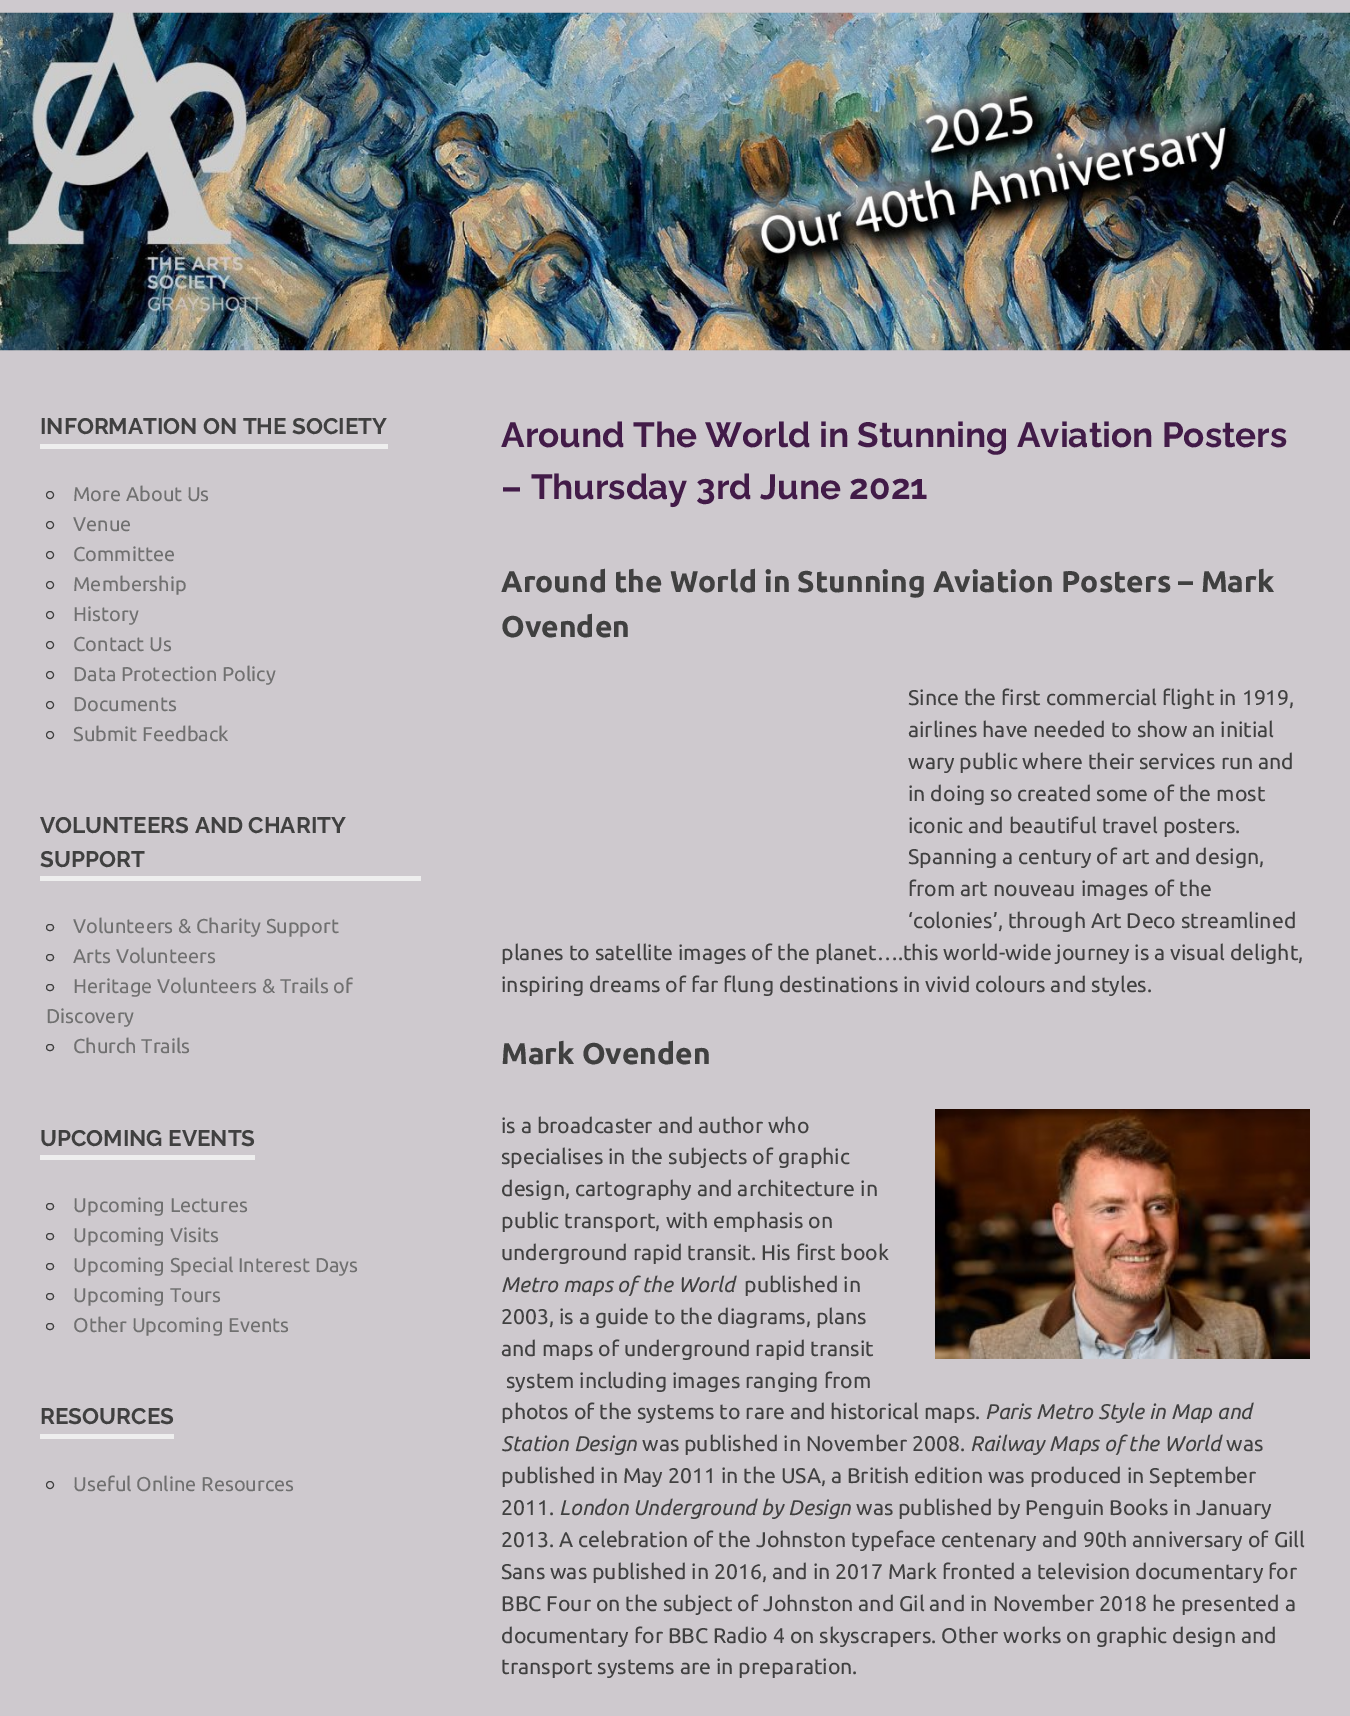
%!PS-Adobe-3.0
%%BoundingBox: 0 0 1350 1716
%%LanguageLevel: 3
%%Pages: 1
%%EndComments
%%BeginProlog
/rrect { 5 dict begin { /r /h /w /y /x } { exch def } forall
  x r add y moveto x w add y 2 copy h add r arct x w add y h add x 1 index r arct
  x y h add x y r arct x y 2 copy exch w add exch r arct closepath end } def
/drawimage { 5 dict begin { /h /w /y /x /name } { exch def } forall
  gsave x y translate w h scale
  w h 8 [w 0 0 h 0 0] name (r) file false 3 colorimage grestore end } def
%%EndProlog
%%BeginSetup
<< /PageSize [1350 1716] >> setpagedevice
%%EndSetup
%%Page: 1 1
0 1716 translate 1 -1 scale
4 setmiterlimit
0.808 0.788 0.808 setrgbcolor
0 0 1350 1716 rectfill
(images/1.raw) 0 12 1350 339 drawimage
0.933 setgray
40 444 348 5 rectfill
0.251 setgray
newpath 50 495 3.5 0 360 arc closepath stroke
newpath 50 525 3.5 0 360 arc closepath stroke
newpath 50 555 3.5 0 360 arc closepath stroke
newpath 50 585 3.5 0 360 arc closepath stroke
newpath 50 615 3.5 0 360 arc closepath stroke
newpath 50 645 3.5 0 360 arc closepath stroke
newpath 50 675 3.5 0 360 arc closepath stroke
newpath 50 705 3.5 0 360 arc closepath stroke
newpath 50 735 3.5 0 360 arc closepath stroke
0.933 setgray
40 876 381 5 rectfill
0.251 setgray
46.5 924.5 7 6 3 rrect stroke
46.5 954.5 7 6 3 rrect stroke
46.5 984.5 7 6 3 rrect stroke
46.5 1044.5 7 6 3 rrect stroke
0.933 setgray
40 1155 215 5 rectfill
0.251 setgray
46.5 1203.5 7 6 3 rrect stroke
46.5 1233.5 7 6 3 rrect stroke
46.5 1263.5 7 6 3 rrect stroke
46.5 1293.5 7 6 3 rrect stroke
46.5 1323.5 7 6 3 rrect stroke
0.933 setgray
40 1434 134 5 rectfill
0.251 setgray
newpath 50 1485 3.5 0 360 arc closepath stroke
(images/2.raw) 935 1109 375 250 drawimage
/Raleway-Thin [22.5 0 0 -22.5 0 0] selectfont
40 434 moveto (INFORMATION ON THE SOCIETY) show
/Ubuntu-Regular [20 0 0 -20 0 0] selectfont
0.439 setgray
73 501 moveto (More About Us) show
73 531 moveto (Venue) show
73 561 moveto (Committee) show
73 591 moveto (Membership) show
73 621 moveto (History) show
73 651 moveto (Contact Us) show
73 681 moveto (Data Protection Policy) show
73 711 moveto (Documents) show
73 741 moveto (Submit Feedback) show
/Raleway-Thin [22.5 0 0 -22.5 0 0] selectfont
0.251 setgray
40 833 moveto (VOLUNTEERS AND CHARITY) show
40 867 moveto (SUPPORT) show
/Ubuntu-Regular [20 0 0 -20 0 0] selectfont
0.439 setgray
73 933 moveto (Volunteers & Charity Support) show
73 963 moveto (Arts Volunteers) show
73 993 moveto (Heritage Volunteers & Trails of) show
46 1023 moveto (Discovery) show
73 1053 moveto (Church Trails) show
/Raleway-Thin [22.5 0 0 -22.5 0 0] selectfont
0.251 setgray
40 1146 moveto (UPCOMING EVENTS) show
/Ubuntu-Regular [20 0 0 -20 0 0] selectfont
0.439 setgray
73 1212 moveto (Upcoming Lectures) show
73 1242 moveto (Upcoming Visits) show
73 1272 moveto (Upcoming Special Interest Days) show
73 1302 moveto (Upcoming Tours) show
73 1332 moveto (Other Upcoming Events) show
/Raleway-Thin [22.5 0 0 -22.5 0 0] selectfont
0.251 setgray
40 1424 moveto (RESOURCES) show
/Ubuntu-Regular [20 0 0 -20 0 0] selectfont
0.439 setgray
73 1491 moveto (Useful Online Resources) show
/Raleway-Thin [35 0 0 -35 0 0] selectfont
0.259 0.106 0.282 setrgbcolor
501 447 moveto (Around The World in Stunning Aviation Posters) show
501 499 moveto (– Thursday 3rd June 2021) show
/Ubuntu-Bold [30 0 0 -30 0 0] selectfont
0.251 setgray
501 592 moveto (Around the World in Stunning Aviation Posters – Mark) show
501 637 moveto (Ovenden) show
/Ubuntu-Regular [21.25 0 0 -21.25 0 0] selectfont
908 705 moveto (Since the first commercial flight in 1919,) show
908 737 moveto (airlines have needed to show an initial) show
908 769 moveto (wary public where their services run and) show
908 801 moveto (in doing so created some of the most) show
908 833 moveto (iconic and beautiful travel posters.) show
908 864 moveto (Spanning a century of art and design,) show
908 896 moveto (from art nouveau images of the) show
908 928 moveto (‘colonies’, through Art Deco streamlined) show
501 960 moveto (planes to satellite images of the planet….this world-wide journey is a visual delight,) show
501 992 moveto (inspiring dreams of far flung destinations in vivid colours and styles.) show
/Ubuntu-Bold [30 0 0 -30 0 0] selectfont
501 1064 moveto (Mark Ovenden) show
/Ubuntu-Regular [21.25 0 0 -21.25 0 0] selectfont
501 1133 moveto (is a broadcaster and author who) show
501 1164 moveto (specialises in the subjects of graphic) show
501 1196 moveto (design, cartography and architecture in) show
501 1228 moveto (public transport, with emphasis on) show
501 1260 moveto (underground rapid transit. His first book) show
/Ubuntu-Italic [21.25 0 0 -21.25 0 0] selectfont
501 1292 moveto (Metro maps of the World) show
/Ubuntu-Regular [21.25 0 0 -21.25 0 0] selectfont
744 1292 moveto (published in) show
501 1324 moveto (2003, is a guide to the diagrams, plans) show
501 1356 moveto (and maps of underground rapid transit) show
506 1388 moveto (system including images ranging from) show
501 1419 moveto (photos of the systems to rare and historical maps.) show
/Ubuntu-Italic [21.25 0 0 -21.25 0 0] selectfont
985 1419 moveto (Paris Metro Style in Map and) show
501 1451 moveto (Station Design) show
/Ubuntu-Regular [21.25 0 0 -21.25 0 0] selectfont
642 1451 moveto (was published in November 2008.) show
/Ubuntu-Italic [21.25 0 0 -21.25 0 0] selectfont
970 1451 moveto (Railway Maps of the World) show
/Ubuntu-Regular [21.25 0 0 -21.25 0 0] selectfont
1226 1451 moveto (was) show
501 1483 moveto (published in May 2011 in the USA, a British edition was produced in September) show
501 1515 moveto (2011.) show
/Ubuntu-Italic [21.25 0 0 -21.25 0 0] selectfont
559 1515 moveto (London Underground by Design) show
/Ubuntu-Regular [21.25 0 0 -21.25 0 0] selectfont
856 1515 moveto (was published by Penguin Books in January) show
501 1547 moveto (2013. A celebration of the Johnston typeface centenary and 90th anniversary of Gill) show
501 1579 moveto (Sans was published in 2016, and in 2017 Mark fronted a television documentary for) show
501 1611 moveto (BBC Four on the subject of Johnston and Gil and in November 2018 he presented a) show
501 1643 moveto (documentary for BBC Radio 4 on skyscrapers. Other works on graphic design and) show
501 1674 moveto (transport systems are in preparation.) show
showpage
%%EOF
